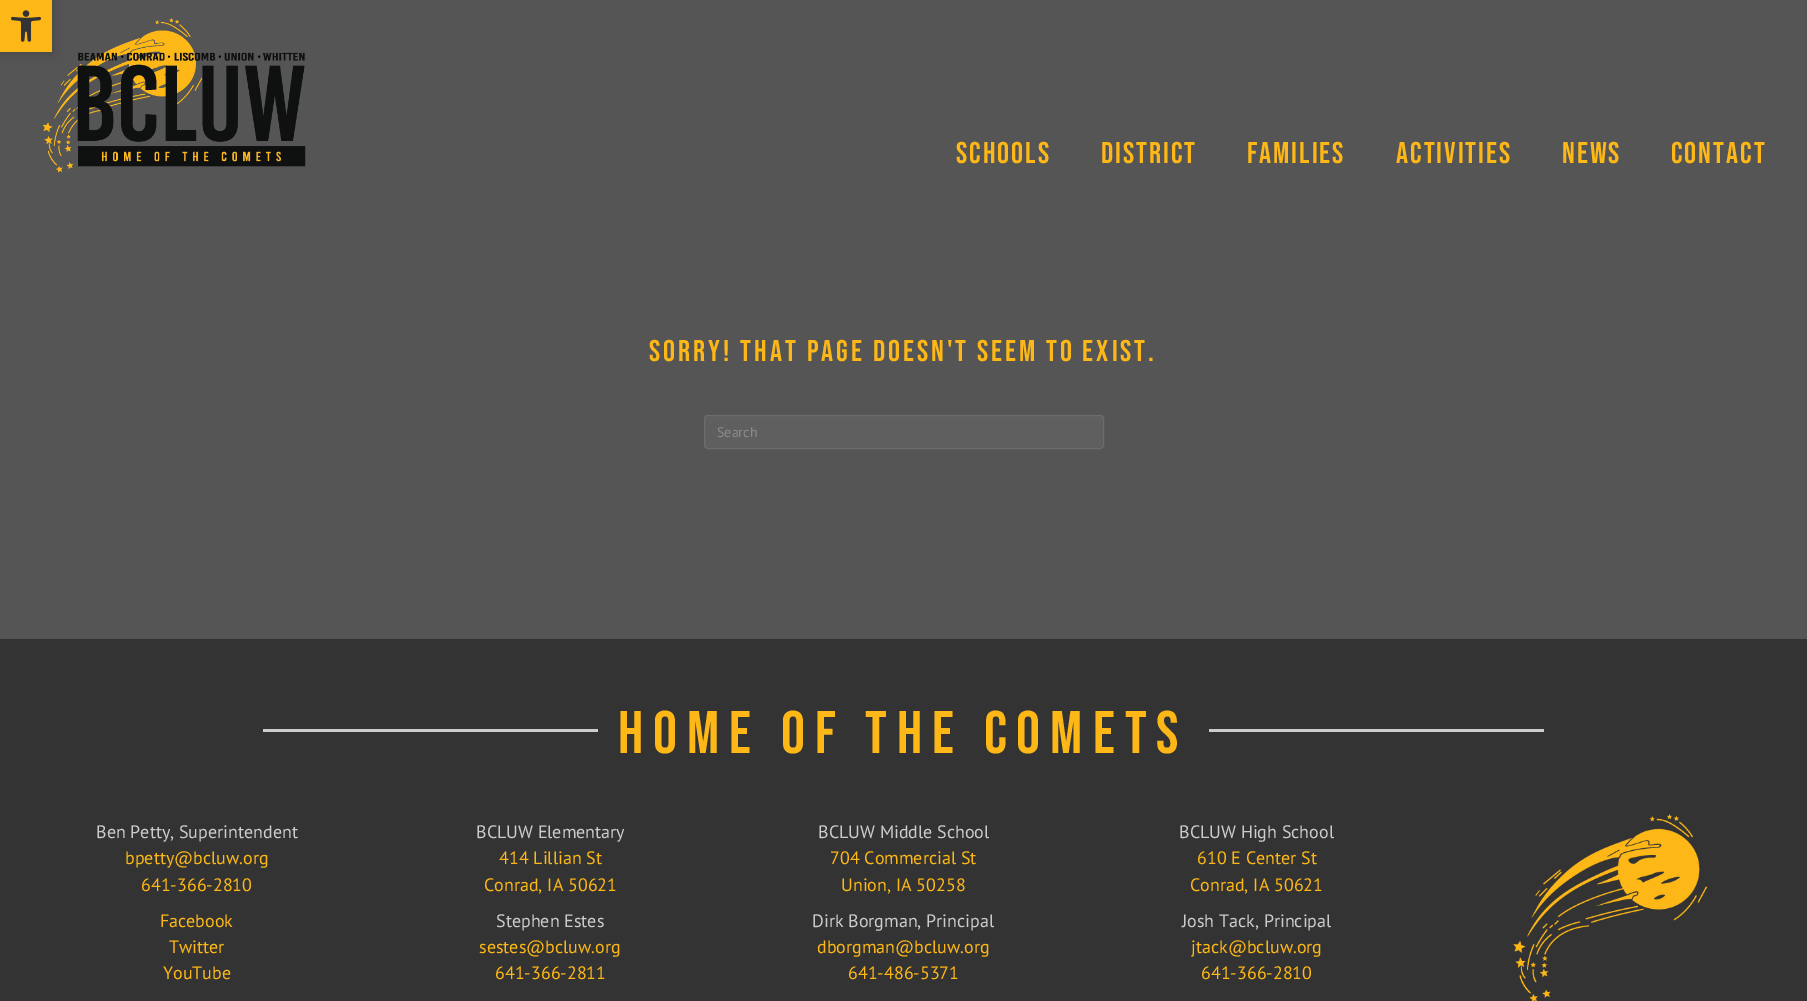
%!PS-Adobe-3.0
%%BoundingBox: 0 0 1807 1001
%%LanguageLevel: 3
%%Pages: 1
%%EndComments
%%BeginProlog
/setalpha { dup .setfillconstantalpha .setstrokeconstantalpha } def
/rrect { 5 dict begin { /r /h /w /y /x } { exch def } forall
  x r add y moveto x w add y 2 copy h add r arct x w add y h add x 1 index r arct
  x y h add x y r arct x y 2 copy exch w add exch r arct closepath end } def
/softshadow { 12 dict begin { /a /b /q /h /w /y /x } { exch def } forall gsave /was 0 def
  9 -2 -9 { dup b mul 4 div /e exch def 1 sub .425 mul 2.718 exch exp 1 add a .99 .min exch div /now exch def
    1 1 now sub 1 was sub div sub setalpha /was now def
    w h .min e 2 mul add 0 gt { x e sub y e sub w e 2 mul add h e 2 mul add
      q e add b .6 mul add w h .min 2 div e add .min 0 .max rrect fill } if } for grestore end } def
/drawimage { 5 dict begin { /h /w /y /x /name } { exch def } forall
  gsave x y translate w h scale
  w h 8 [w 0 0 h 0 0] name (r) file false 3 colorimage grestore end } def
%%EndProlog
%%BeginSetup
<< /PageSize [1807 1001] /PageUsesTransparency true >> setpagedevice
%%EndSetup
%%Page: 1 1
0 .pushpdf14devicefilter
0 1001 translate 1 -1 scale
4 setmiterlimit
0.333 setgray
0 0 1807 1001 rectfill
(images/2.raw) 43 18 263 155 drawimage
0 setgray
0 0 52 52 0 5 0.2 softshadow
0.992 0.722 0.09 setrgbcolor
0 0 52 52 rectfill
(images/1.raw) 11 10 30 32 drawimage
0.373 setgray
704.5 415.5 399 33 3.5 rrect gsave fill grestore
0.424 setgray
stroke
0.2 setgray
0 639 1807 362 rectfill
0.8 setgray
263 729 335 3 rectfill
1209 729 335 3 rectfill
(images/3.raw) 1513 814 195 187 drawimage
/BebasNeue-Regular [30 0 0 -30 0 0] selectfont
0.992 0.722 0.09 setrgbcolor
956 163 moveto 2 0 (Schools) ashow
1101 163 moveto 2 0 (District) ashow
1247 163 moveto 2 0 (Families) ashow
1396 163 moveto 2 0 (Activities) ashow
1562 163 moveto 2 0 (News) ashow
1671 163 moveto 2 0 (Contact) ashow
649 361 moveto 3 0 (Sorry! That page doesn't seem to exist.) ashow
/PTSans-Regular [14 0 0 -14 0 0] selectfont
0.545 setgray
717 437 moveto (Search) show
/BebasNeue-Regular [60 0 0 -60 0 0] selectfont
0.992 0.722 0.09 setrgbcolor
618 753 moveto 10 0 (Home of the Comets) ashow
/PTSans-Regular [18 0 0 -18 0 0] selectfont
0.8 setgray
96 838 moveto (Ben Petty, Superintendent) show
0.992 0.722 0.09 setrgbcolor
125 864 moveto (bpetty@bcluw.org) show
141 891 moveto (641-366-2810) show
160 927 moveto (Facebook) show
169 953 moveto (Twitter) show
163 979 moveto (YouTube) show
0.8 setgray
476 838 moveto (BCLUW Elementary) show
0.992 0.722 0.09 setrgbcolor
499 864 moveto (414 Lillian St) show
484 891 moveto (Conrad, IA 50621) show
0.8 setgray
496 927 moveto (Stephen Estes) show
0.992 0.722 0.09 setrgbcolor
479 953 moveto (sestes@bcluw.org) show
495 979 moveto (641-366-2811) show
0.8 setgray
818 838 moveto (BCLUW Middle School) show
0.992 0.722 0.09 setrgbcolor
830 864 moveto (704 Commercial St) show
841 891 moveto (Union, IA 50258) show
0.8 setgray
812 927 moveto (Dirk Borgman, Principal) show
0.992 0.722 0.09 setrgbcolor
817 953 moveto (dborgman@bcluw.org) show
848 979 moveto (641-486-5371) show
0.8 setgray
1179 838 moveto (BCLUW High School) show
0.992 0.722 0.09 setrgbcolor
1197 864 moveto (610 E Center St) show
1190 891 moveto (Conrad, IA 50621) show
0.8 setgray
1182 927 moveto (Josh Tack, Principal) show
0.992 0.722 0.09 setrgbcolor
1191 953 moveto (jtack@bcluw.org) show
1201 979 moveto (641-366-2810) show
.poppdf14devicefilter showpage
%%EOF
